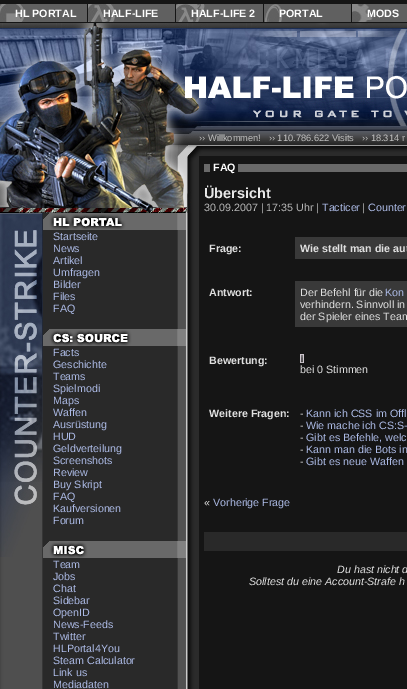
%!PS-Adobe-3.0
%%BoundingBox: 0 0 407 689
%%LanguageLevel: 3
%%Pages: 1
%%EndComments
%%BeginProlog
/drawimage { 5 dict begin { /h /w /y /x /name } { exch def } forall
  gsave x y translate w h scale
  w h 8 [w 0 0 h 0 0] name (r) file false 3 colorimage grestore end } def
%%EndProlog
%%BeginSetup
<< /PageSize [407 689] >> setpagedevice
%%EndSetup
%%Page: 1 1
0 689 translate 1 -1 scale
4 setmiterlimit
0.082 setgray
0 0 407 689 rectfill
0.376 setgray
25 4 62 18 rectfill
(images/1.raw) 0 4 25 18 drawimage
115 4 60 18 rectfill
(images/2.raw) 88 4 27 18 drawimage
205 4 58 18 rectfill
(images/3.raw) 176 4 29 18 drawimage
264 4 87 18 rectfill
(images/4.raw) 265 4 17 18 drawimage
373 4 34 18 rectfill
(images/5.raw) 352 4 21 18 drawimage
(images/6.raw) 0 23 407 14 drawimage
(images/7.raw) 0 37 407 60 drawimage
(images/8.raw) 0 97 407 33 drawimage
(images/9.raw) 0 213 199 476 drawimage
(images/10.raw) 0 130 199 83 drawimage
(images/11.raw) 0 213 43 344 drawimage
(images/12.raw) 43 213 143 17 drawimage
(images/13.raw) 43 329 143 17 drawimage
(images/14.raw) 43 541 143 17 drawimage
(images/15.raw) 199 130 208 15 drawimage
(images/16.raw) 199 145 208 11 drawimage
0.412 setgray
204 164 6 8 rectfill
238 164 169 8 rectfill
0.224 setgray
295 237 112 22 rectfill
295 281 112 46 rectfill
(images/17.raw) 300 354 2 9 drawimage
(images/18.raw) 302 354 2 9 drawimage
0.161 setgray
204 532 203 19 rectfill
/LiberationSans-Bold [10.7 0 0 -10.7 0 0] selectfont
1 setgray
15 17 moveto (HL PORTAL) show
103 17 moveto (HALF-LIFE) show
191 17 moveto (HALF-LIFE 2) show
279 17 moveto (PORTAL) show
367 17 moveto (MODS) show
/LiberationSans-Regular [10.7 0 0 -10.7 0 0] selectfont
0.675 0.729 0.898 setrgbcolor
53 240 moveto (Startseite) show
53 252 moveto (News) show
53 264 moveto (Artikel) show
53 276 moveto (Umfragen) show
53 288 moveto (Bilder) show
53 300 moveto (Files) show
53 312 moveto (FAQ) show
53 356 moveto (Facts) show
53 368 moveto (Geschichte) show
53 380 moveto (Teams) show
53 392 moveto (Spielmodi) show
53 404 moveto (Maps) show
53 416 moveto (Waffen) show
53 428 moveto (Ausrüstung) show
53 440 moveto (HUD) show
53 452 moveto (Geldverteilung) show
53 464 moveto (Screenshots) show
53 476 moveto (Review) show
53 488 moveto (Buy Skript) show
53 500 moveto (FAQ) show
53 512 moveto (Kaufversionen) show
53 524 moveto (Forum) show
53 568 moveto (Team) show
53 580 moveto (Jobs) show
53 592 moveto (Chat) show
53 604 moveto (Sidebar) show
53 616 moveto (OpenID) show
53 628 moveto (News-Feeds) show
53 640 moveto (Twitter) show
53 652 moveto (HLPortal4You) show
53 664 moveto (Steam Calculator) show
53 676 moveto (Link us) show
53 688 moveto (Mediadaten) show
/LiberationSans-Regular [9.3 0 0 -9.3 0 0] selectfont
0.753 setgray
199 141 moveto (›› Willkommen!   ›› 110.786.622 Visits   ›› 18.314 r) show
/LiberationSans-Bold [10.7 0 0 -10.7 0 0] selectfont
1 setgray
213 171 moveto (FAQ) show
/LiberationSans-Bold [14.5 0 0 -14.5 0 0] selectfont
0.91 setgray
204 198 moveto (Übersicht) show
/LiberationSans-Regular [10.7 0 0 -10.7 0 0] selectfont
0.725 setgray
204 211 moveto (30.09.2007 | 17:35 Uhr |) show
0.675 0.729 0.898 setrgbcolor
322 211 moveto (Tacticer) show
0.725 setgray
362 211 moveto (|) show
0.675 0.729 0.898 setrgbcolor
368 211 moveto (Counter) show
/LiberationSans-Bold [10.7 0 0 -10.7 0 0] selectfont
0.878 setgray
209 252 moveto (Frage:) show
300 252 moveto (Wie stellt man die aut) show
209 296 moveto (Antwort:) show
/LiberationSans-Regular [10.7 0 0 -10.7 0 0] selectfont
300 296 moveto (Der Befehl für die) show
0.675 0.729 0.898 setrgbcolor
385 296 moveto (Kon) show
0.878 setgray
300 308 moveto (verhindern. Sinnvoll in) show
300 320 moveto (der Spieler eines Team) show
/LiberationSans-Bold [10.7 0 0 -10.7 0 0] selectfont
209 364 moveto (Bewertung:) show
/LiberationSans-Regular [10.7 0 0 -10.7 0 0] selectfont
300 373 moveto (bei 0 Stimmen) show
/LiberationSans-Bold [10.7 0 0 -10.7 0 0] selectfont
209 417 moveto (Weitere Fragen:) show
/LiberationSans-Regular [10.7 0 0 -10.7 0 0] selectfont
300 417 moveto (-) show
0.675 0.729 0.898 setrgbcolor
306 417 moveto (Kann ich CSS im Offl) show
0.878 setgray
300 429 moveto (-) show
0.675 0.729 0.898 setrgbcolor
306 429 moveto (Wie mache ich CS:S-) show
0.878 setgray
300 441 moveto (-) show
0.675 0.729 0.898 setrgbcolor
306 441 moveto (Gibt es Befehle, welc) show
0.878 setgray
300 453 moveto (-) show
0.675 0.729 0.898 setrgbcolor
306 453 moveto (Kann man die Bots in) show
0.878 setgray
300 465 moveto (-) show
0.675 0.729 0.898 setrgbcolor
306 465 moveto (Gibt es neue Waffen) show
0.878 setgray
204 506 moveto («) show
0.675 0.729 0.898 setrgbcolor
213 506 moveto (Vorherige Frage) show
/LiberationSans-Italic [10.7 0 0 -10.7 0 0] selectfont
0.878 setgray
337 573 moveto (Du hast nicht d) show
249 585 moveto (Solltest du eine Account-Strafe h) show
showpage
%%EOF
